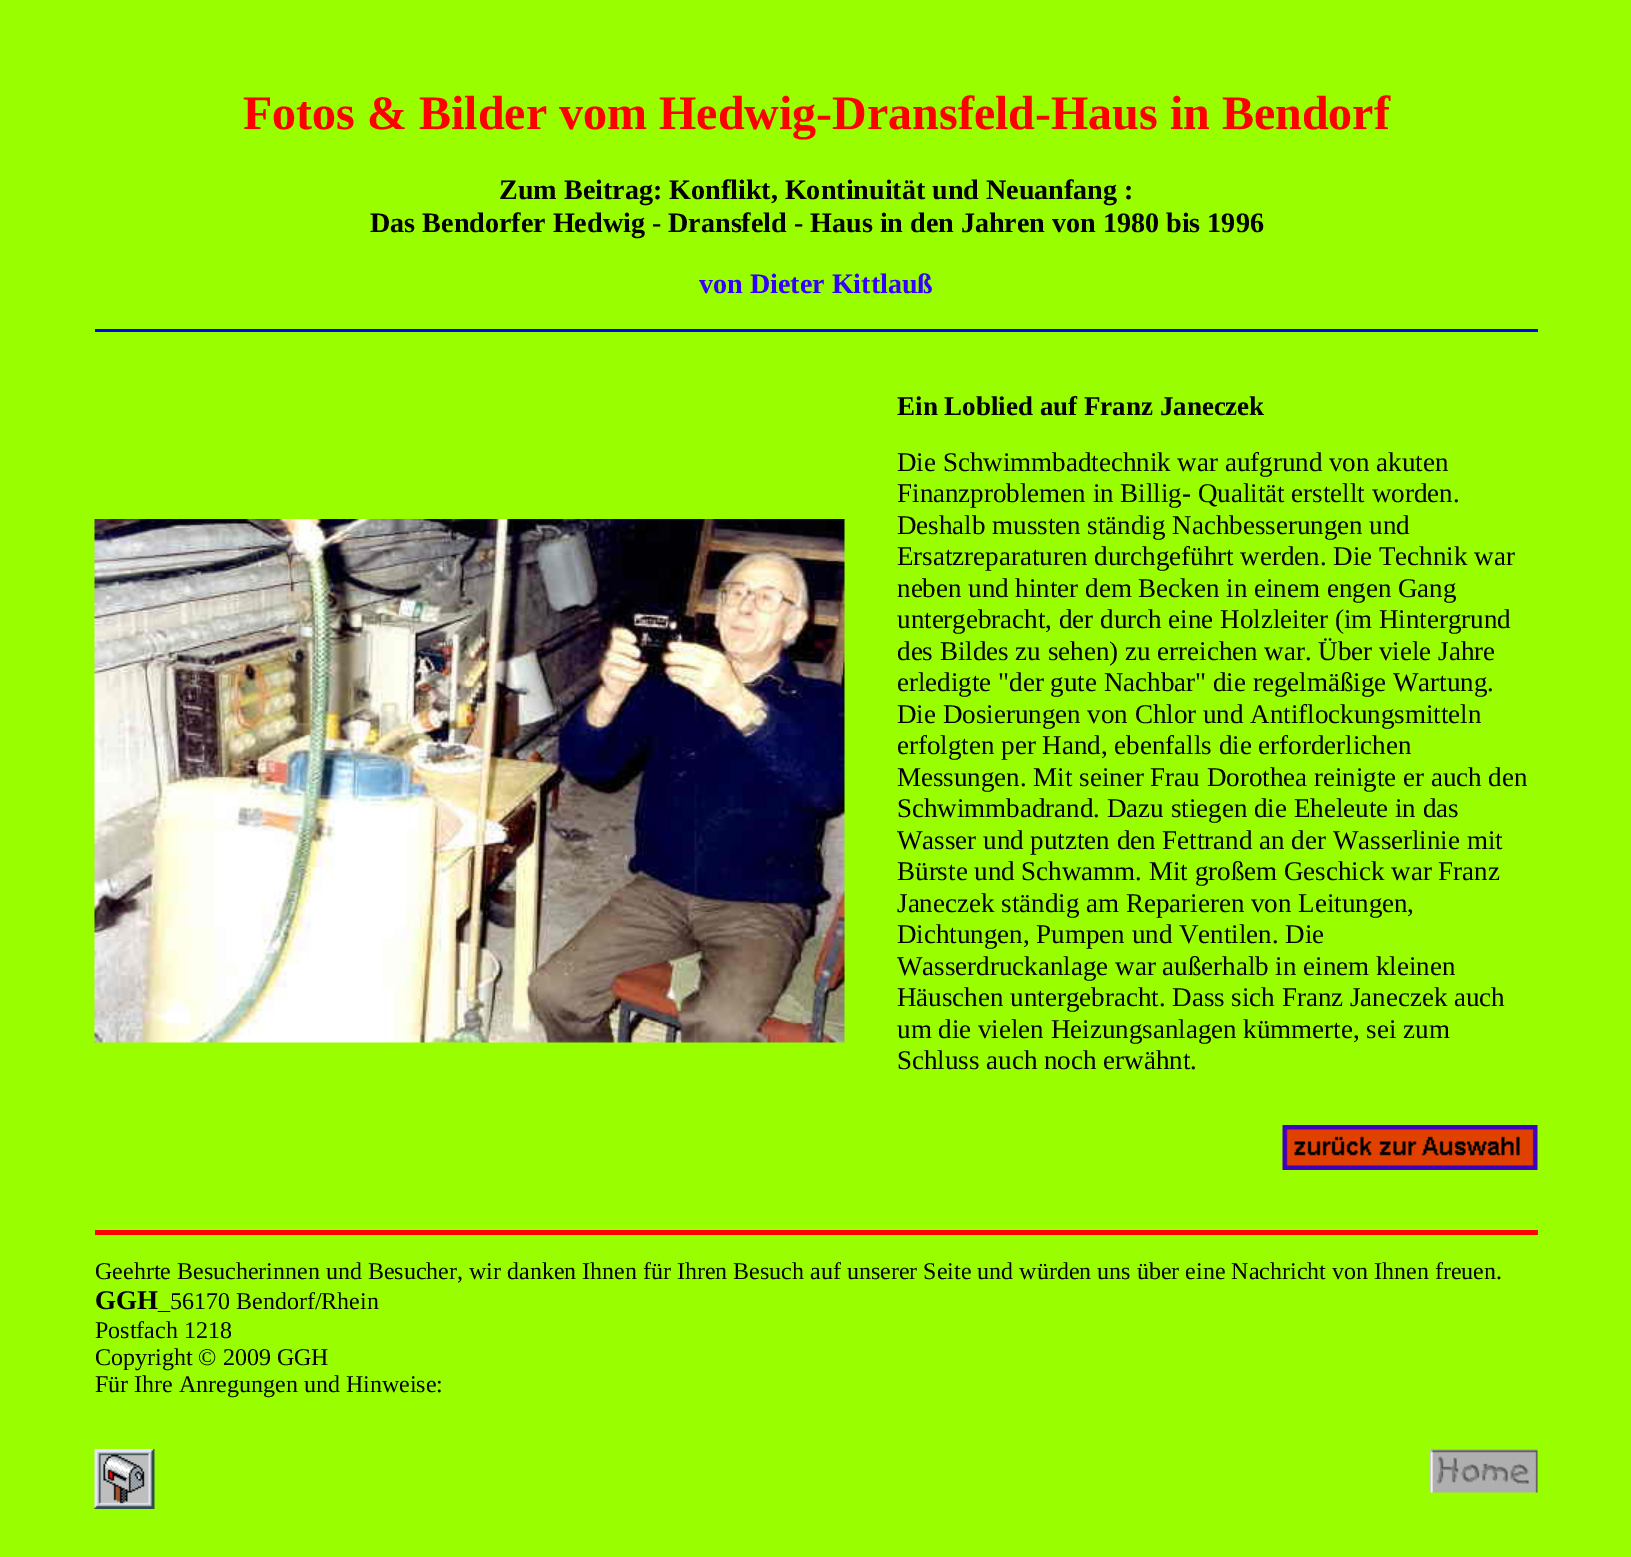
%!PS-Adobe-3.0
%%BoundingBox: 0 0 1631 1557
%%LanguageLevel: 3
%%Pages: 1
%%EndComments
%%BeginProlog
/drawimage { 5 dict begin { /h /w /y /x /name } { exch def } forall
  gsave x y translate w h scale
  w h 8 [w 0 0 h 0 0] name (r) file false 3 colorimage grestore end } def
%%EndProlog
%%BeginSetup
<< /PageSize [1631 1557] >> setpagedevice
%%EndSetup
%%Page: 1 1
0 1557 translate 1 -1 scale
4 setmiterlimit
0.6 1 0 setrgbcolor
0 0 1631 1557 rectfill
0 0 1 setrgbcolor
95 329 1443 3 rectfill
(images/1.raw) 94 519 751 524 drawimage
(images/2.raw) 1282 1125 256 45 drawimage
1 0 0 setrgbcolor
95 1230 1443 5 rectfill
(images/3.raw) 94 1449 61 60 drawimage
(images/4.raw) 1429 1449 109 44 drawimage
/LiberationSerif-Bold [48 0 0 -48 0 0] selectfont
243 129 moveto (Fotos & Bilder vom Hedwig-Dransfeld-Haus in Bendorf) show
/LiberationSerif-Bold [28.1 0 0 -28.1 0 0] selectfont
0 setgray
499 199 moveto (Zum Beitrag: Konflikt, Kontinuität und) show
986 199 moveto (Neuanfang :) show
370 232 moveto (Das Bendorfer Hedwig - Dransfeld - Haus in den Jahren von 1980 bis 1996) show
0.2 0 1 setrgbcolor
699 293 moveto (von Dieter Kittlauß) show
/LiberationSerif-Bold [27 0 0 -27 0 0] selectfont
0 setgray
897 415 moveto (Ein Loblied auf Franz Janeczek) show
/LiberationSerif-Regular [27 0 0 -27 0 0] selectfont
897 471 moveto (Die Schwimmbadtechnik war aufgrund von akuten) show
897 502 moveto (Finanzproblemen in Billig- Qualität erstellt worden.) show
897 534 moveto (Deshalb mussten ständig Nachbesserungen und) show
897 565 moveto (Ersatzreparaturen durchgeführt werden. Die Technik war) show
897 597 moveto (neben und hinter dem Becken in einem engen Gang) show
897 628 moveto (untergebracht, der durch eine Holzleiter \(im Hintergrund) show
897 660 moveto (des Bildes zu sehen\) zu erreichen war. Über viele Jahre) show
897 691 moveto (erledigte "der gute Nachbar" die regelmäßige Wartung.) show
897 723 moveto (Die Dosierungen von Chlor und Antiflockungsmitteln) show
897 754 moveto (erfolgten per Hand, ebenfalls die erforderlichen) show
897 786 moveto (Messungen. Mit seiner Frau Dorothea reinigte er auch den) show
897 817 moveto (Schwimmbadrand. Dazu stiegen die Eheleute in das) show
897 849 moveto (Wasser und putzten den Fettrand an der Wasserlinie mit) show
897 880 moveto (Bürste und Schwamm. Mit großem Geschick war Franz) show
897 912 moveto (Janeczek ständig am Reparieren von Leitungen,) show
897 943 moveto (Dichtungen, Pumpen und Ventilen. Die) show
897 975 moveto (Wasserdruckanlage war außerhalb in einem kleinen) show
897 1006 moveto (Häuschen untergebracht. Dass sich Franz Janeczek auch) show
897 1038 moveto (um die vielen Heizungsanlagen kümmerte, sei zum) show
897 1069 moveto (Schluss auch noch erwähnt.) show
/LiberationSerif-Regular [24 0 0 -24 0 0] selectfont
95 1279 moveto (Geehrte Besucherinnen und Besucher, wir danken Ihnen für Ihren Besuch auf unserer Seite und würden uns über eine Nachricht von Ihnen freuen.) show
/LiberationSerif-Bold [27 0 0 -27 0 0] selectfont
95 1309 moveto (GGH) show
/LiberationSerif-Regular [24 0 0 -24 0 0] selectfont
158 1309 moveto (_56170 Bendorf/Rhein) show
95 1338 moveto (Postfach 1218) show
95 1365 moveto (Copyright © 2009 GGH) show
95 1392 moveto (Für Ihre Anregungen und Hinweise:) show
showpage
%%EOF
